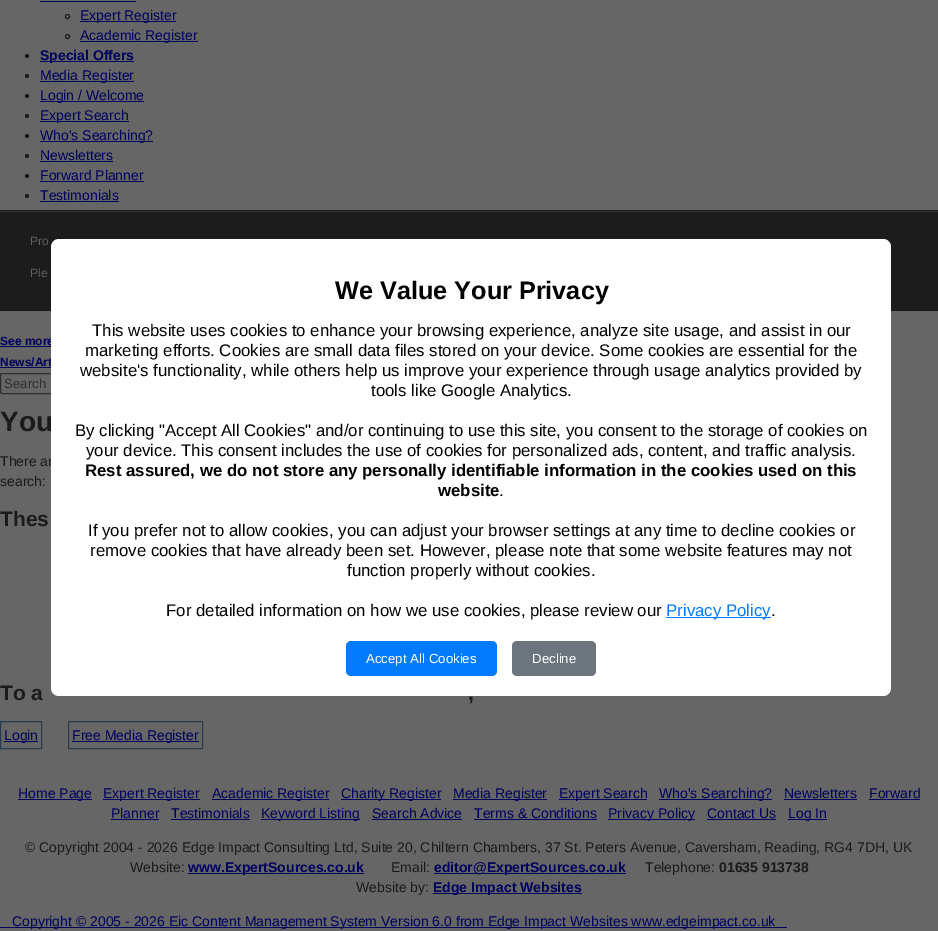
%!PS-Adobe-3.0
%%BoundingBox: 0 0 938 931
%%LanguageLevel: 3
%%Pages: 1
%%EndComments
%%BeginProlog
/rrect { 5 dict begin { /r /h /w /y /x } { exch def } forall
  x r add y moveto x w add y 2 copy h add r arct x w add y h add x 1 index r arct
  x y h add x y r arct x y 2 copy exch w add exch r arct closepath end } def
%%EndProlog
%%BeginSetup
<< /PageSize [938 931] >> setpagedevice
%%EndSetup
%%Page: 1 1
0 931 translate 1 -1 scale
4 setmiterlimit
0.4 setgray
0 0 938 931 rectfill
0 0 0.373 setrgbcolor
40 1 96 1 rectfill
0.106 setgray
newpath 67.5 16.5 2 0 360 arc closepath stroke
0 0 0.373 setrgbcolor
80 21 96 1 rectfill
0.106 setgray
newpath 67.5 36.5 2 0 360 arc closepath stroke
0 0 0.373 setrgbcolor
80 41 118 1 rectfill
0.106 setgray
newpath 27 56 2 0 360 arc closepath fill
0 0 0.373 setrgbcolor
40 61 94 1 rectfill
0.106 setgray
newpath 27 76 2 0 360 arc closepath fill
0 0 0.373 setrgbcolor
40 81 94 1 rectfill
0.106 setgray
newpath 27 96 2 0 360 arc closepath fill
0 0 0.373 setrgbcolor
40 101 104 1 rectfill
0.106 setgray
newpath 27 116 2 0 360 arc closepath fill
0 0 0.373 setrgbcolor
40 121 89 1 rectfill
0.106 setgray
newpath 27 136 2 0 360 arc closepath fill
0 0 0.373 setrgbcolor
40 141 113 1 rectfill
0.106 setgray
newpath 27 156 2 0 360 arc closepath fill
0 0 0.373 setrgbcolor
40 161 73 1 rectfill
0.106 setgray
newpath 27 176 2 0 360 arc closepath fill
0 0 0.373 setrgbcolor
40 181 104 1 rectfill
0.106 setgray
newpath 27 196 2 0 360 arc closepath fill
0 0 0.373 setrgbcolor
40 201 79 1 rectfill
0.11 setgray
0 212 938 99 rectfill
0.196 setgray
0 211 938 1 rectfill
0.094 setgray
0 210 938 1 rectfill
0 0 0.373 setrgbcolor
0 346 51 1 rectfill
0 367 51 1 rectfill
0.184 setgray
0.5 373.5 184 20 1.5 rrect stroke
0.161 0.239 0.322 setrgbcolor
0.5 721.5 41 27 rectstroke
0 0 0.373 setrgbcolor
4 741 34 1 rectfill
0.161 0.239 0.322 setrgbcolor
68.5 721.5 134 27 rectstroke
0 0 0.373 setrgbcolor
72 741 127 1 rectfill
18 799 74 1 rectfill
103 799 97 1 rectfill
212 799 117 1 rectfill
341 799 100 1 rectfill
453 799 94 1 rectfill
559 799 88 1 rectfill
659 799 113 1 rectfill
784 799 73 1 rectfill
869 799 51 1 rectfill
111 819 48 1 rectfill
171 819 79 1 rectfill
261 819 99 1 rectfill
372 819 90 1 rectfill
474 819 123 1 rectfill
608 819 87 1 rectfill
707 819 69 1 rectfill
788 819 39 1 rectfill
188 873 176 1 rectfill
434 873 192 1 rectfill
433 893 149 1 rectfill
0 927 787 1 rectfill
/LiberationSans-Regular [14 0 0 -14 0 0] selectfont
80 20 moveto (Expert Register) show
80 40 moveto (Academic Register) show
/LiberationSans-Bold [14 0 0 -14 0 0] selectfont
40 60 moveto (Special Offers) show
/LiberationSans-Regular [14 0 0 -14 0 0] selectfont
40 80 moveto (Media Register) show
40 100 moveto (Login / Welcome) show
40 120 moveto (Expert Search) show
40 140 moveto (Who's Searching?) show
40 160 moveto (Newsletters) show
40 180 moveto (Forward Planner) show
40 200 moveto (Testimonials) show
/LiberationSans-Regular [12 0 0 -12 0 0] selectfont
0.376 setgray
30 245 moveto (Pro) show
30 277 moveto (Ple) show
/LiberationSans-Bold [12 0 0 -12 0 0] selectfont
0 0 0.373 setrgbcolor
0 345 moveto (See more) show
0 366 moveto (News/Art) show
/LiberationSans-Regular [13.25 0 0 -13.25 0 0] selectfont
0.184 setgray
4 388 moveto (Search) show
/LiberationSans-Bold [28 0 0 -28 0 0] selectfont
0.106 setgray
0 431 moveto (You) show
/LiberationSans-Regular [14 0 0 -14 0 0] selectfont
0 466 moveto (There ar) show
0 486 moveto (search:) show
/LiberationSans-Bold [21 0 0 -21 0 0] selectfont
0 526 moveto (Thes) show
0 700 moveto (To a) show
468 700 moveto (,) show
/LiberationSans-Regular [14 0 0 -14 0 0] selectfont
0 0 0.373 setrgbcolor
4 740 moveto (Login) show
72 740 moveto (Free Media Register) show
1 setgray
51 239 840 457 8 rrect fill
/LiberationSans-Bold [25.25 0 0 -25.25 0 0] selectfont
0 setgray
335 299 moveto (We Value Your Privacy) show
/LiberationSans-Regular [16.8 0 0 -16.8 0 0] selectfont
92 336 moveto (This website uses cookies to enhance your browsing experience, analyze site usage, and assist in our) show
85 356 moveto (marketing efforts. Cookies are small data files stored on your device. Some cookies are essential for the) show
80 376 moveto (website's functionality, while others help us improve your experience through usage analytics provided by) show
371 396 moveto (tools like Google Analytics.) show
75 436 moveto (By clicking "Accept All Cookies" and/or continuing to use this site, you consent to the storage of cookies on) show
86 456 moveto (your device. This consent includes the use of cookies for personalized ads, content, and traffic analysis.) show
/LiberationSans-Bold [16.8 0 0 -16.8 0 0] selectfont
85 476 moveto (Rest assured, we do not store any personally identifiable information in the cookies used on this) show
438 496 moveto (website) show
/LiberationSans-Regular [16.8 0 0 -16.8 0 0] selectfont
499 496 moveto (.) show
88 536 moveto (If you prefer not to allow cookies, you can adjust your browser settings at any time to decline cookies or) show
90 556 moveto (remove cookies that have already been set. However, please note that some website features may not) show
347 576 moveto (function properly without cookies.) show
166 616 moveto (For detailed information on how we use cookies, please review our) show
0 0.482 1 setrgbcolor
666 617 105 1 rectfill
666 616 moveto (Privacy Policy) show
0 setgray
771 616 moveto (.) show
0 0.482 1 setrgbcolor
346 641 151 35 5 rrect fill
/LiberationSans-Regular [13.25 0 0 -13.25 0 0] selectfont
1 setgray
366 663 moveto (Accept All Cookies) show
0.424 0.459 0.49 setrgbcolor
512 641 84 35 5 rrect fill
1 setgray
532 663 moveto (Decline) show
/LiberationSans-Regular [14 0 0 -14 0 0] selectfont
0 0 0.373 setrgbcolor
18 798 moveto (Home Page) show
103 798 moveto (Expert Register) show
212 798 moveto (Academic Register) show
341 798 moveto (Charity Register) show
453 798 moveto (Media Register) show
559 798 moveto (Expert Search) show
659 798 moveto (Who's Searching?) show
784 798 moveto (Newsletters) show
869 798 moveto (Forward) show
111 818 moveto (Planner) show
171 818 moveto (Testimonials) show
261 818 moveto (Keyword Listing) show
372 818 moveto (Search Advice) show
474 818 moveto (Terms & Conditions) show
608 818 moveto (Privacy Policy) show
707 818 moveto (Contact Us) show
788 818 moveto (Log In) show
0.106 setgray
25 852 moveto (© Copyright 2004 - 2026 Edge Impact Consulting Ltd, Suite 20, Chiltern Chambers, 37 St. Peters Avenue, Caversham, Reading, RG4 7DH, UK) show
130 872 moveto (Website:) show
/LiberationSans-Bold [14 0 0 -14 0 0] selectfont
0 0 0.373 setrgbcolor
188 872 moveto (www.ExpertSources.co.uk) show
/LiberationSans-Regular [14 0 0 -14 0 0] selectfont
0.106 setgray
391 872 moveto (Email:) show
/LiberationSans-Bold [14 0 0 -14 0 0] selectfont
0 0 0.373 setrgbcolor
434 872 moveto (editor@ExpertSources.co.uk) show
/LiberationSans-Regular [14 0 0 -14 0 0] selectfont
0.106 setgray
645 872 moveto (Telephone:) show
/LiberationSans-Bold [14 0 0 -14 0 0] selectfont
719 872 moveto (01635 913738) show
/LiberationSans-Regular [14 0 0 -14 0 0] selectfont
356 892 moveto (Website by:) show
/LiberationSans-Bold [14 0 0 -14 0 0] selectfont
0 0 0.373 setrgbcolor
433 892 moveto (Edge Impact Websites) show
/LiberationSans-Regular [14 0 0 -14 0 0] selectfont
12 926 moveto (Copyright © 2005 - 2026 Eic Content Management System Version 6.0 from Edge Impact Websites www.edgeimpact.co.uk) show
showpage
%%EOF
